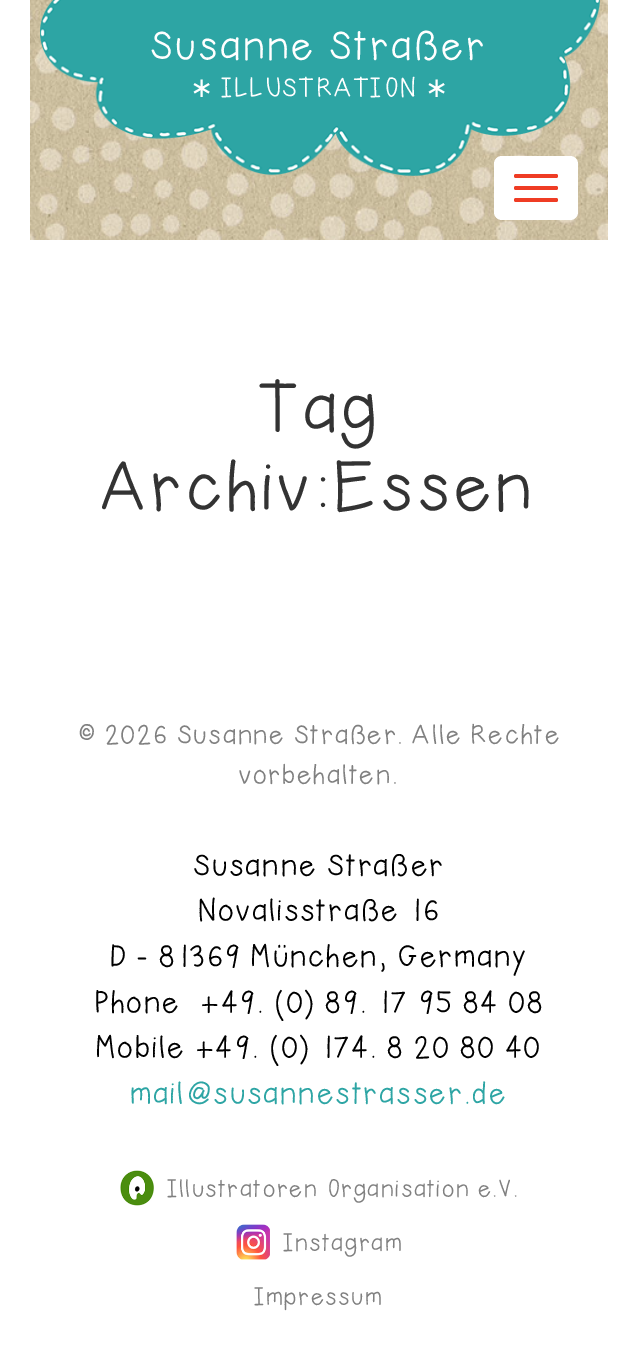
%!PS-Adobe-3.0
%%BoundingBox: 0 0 637 1370
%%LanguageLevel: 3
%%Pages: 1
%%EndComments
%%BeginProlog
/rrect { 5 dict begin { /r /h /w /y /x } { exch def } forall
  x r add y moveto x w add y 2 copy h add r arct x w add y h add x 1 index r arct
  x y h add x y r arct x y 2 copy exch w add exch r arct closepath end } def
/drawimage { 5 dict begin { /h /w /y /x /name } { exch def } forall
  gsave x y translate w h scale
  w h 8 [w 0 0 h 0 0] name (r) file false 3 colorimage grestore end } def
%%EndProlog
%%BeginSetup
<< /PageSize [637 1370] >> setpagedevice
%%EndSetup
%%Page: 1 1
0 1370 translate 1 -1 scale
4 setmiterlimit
1 setgray
0 0 637 1370 rectfill
(images/1.raw) 30 0 578 240 drawimage
(images/2.raw) 40 0 560 176 drawimage
494 156 84 64 8 rrect fill
0.937 0.235 0.141 setrgbcolor
514 174 44 4 2 rrect fill
514 186 44 4 2 rrect fill
514 198 44 4 2 rrect fill
(images/3.raw) 120 1170 34 36 drawimage
(images/4.raw) 236 1224 34 36 drawimage
/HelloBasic-Medium [42.75 0 0 -42.75 0 0] selectfont
1 setgray
150 60 moveto (Susanne Straßer) show
/DejaVuSans-Regular [27.75 0 0 -27.75 0 0] selectfont
190 97 moveto (∗) show
/HelloBasic-Medium [27.75 0 0 -27.75 0 0] selectfont
222 97 moveto (ILLUSTRATION) show
/DejaVuSans-Regular [27.75 0 0 -27.75 0 0] selectfont
425 97 moveto (∗) show
/HelloBasic-Medium [72 0 0 -72 0 0] selectfont
0.2 setgray
257 432 moveto (Tag) show
101 511 moveto (Archiv:Essen) show
/HelloBasic-Medium [28 0 0 -28 0 0] selectfont
0.502 setgray
77 744 moveto (© 2026 Susanne Straßer. Alle Rechte) show
239 784 moveto (vorbehalten.) show
/HelloBasic-Medium [32 0 0 -32 0 0] selectfont
0 setgray
193 876 moveto (Susanne Straßer) show
198 921 moveto (Novalisstraße 16) show
110 967 moveto (D - 81369 München, Germany) show
94 1013 moveto (Phone  +49. \(0\) 89. 17 95 84 08) show
96 1058 moveto (Mobile +49. \(0\) 174. 8 20 80 40) show
0.176 0.647 0.643 setrgbcolor
130 1104 moveto (mail@susannestrasser.de) show
/HelloBasic-Medium [25.25 0 0 -25.25 0 0] selectfont
0.502 setgray
168 1197 moveto (Illustratoren Organisation e.V.) show
284 1251 moveto (Instagram) show
255 1305 moveto (Impressum) show
showpage
%%EOF
